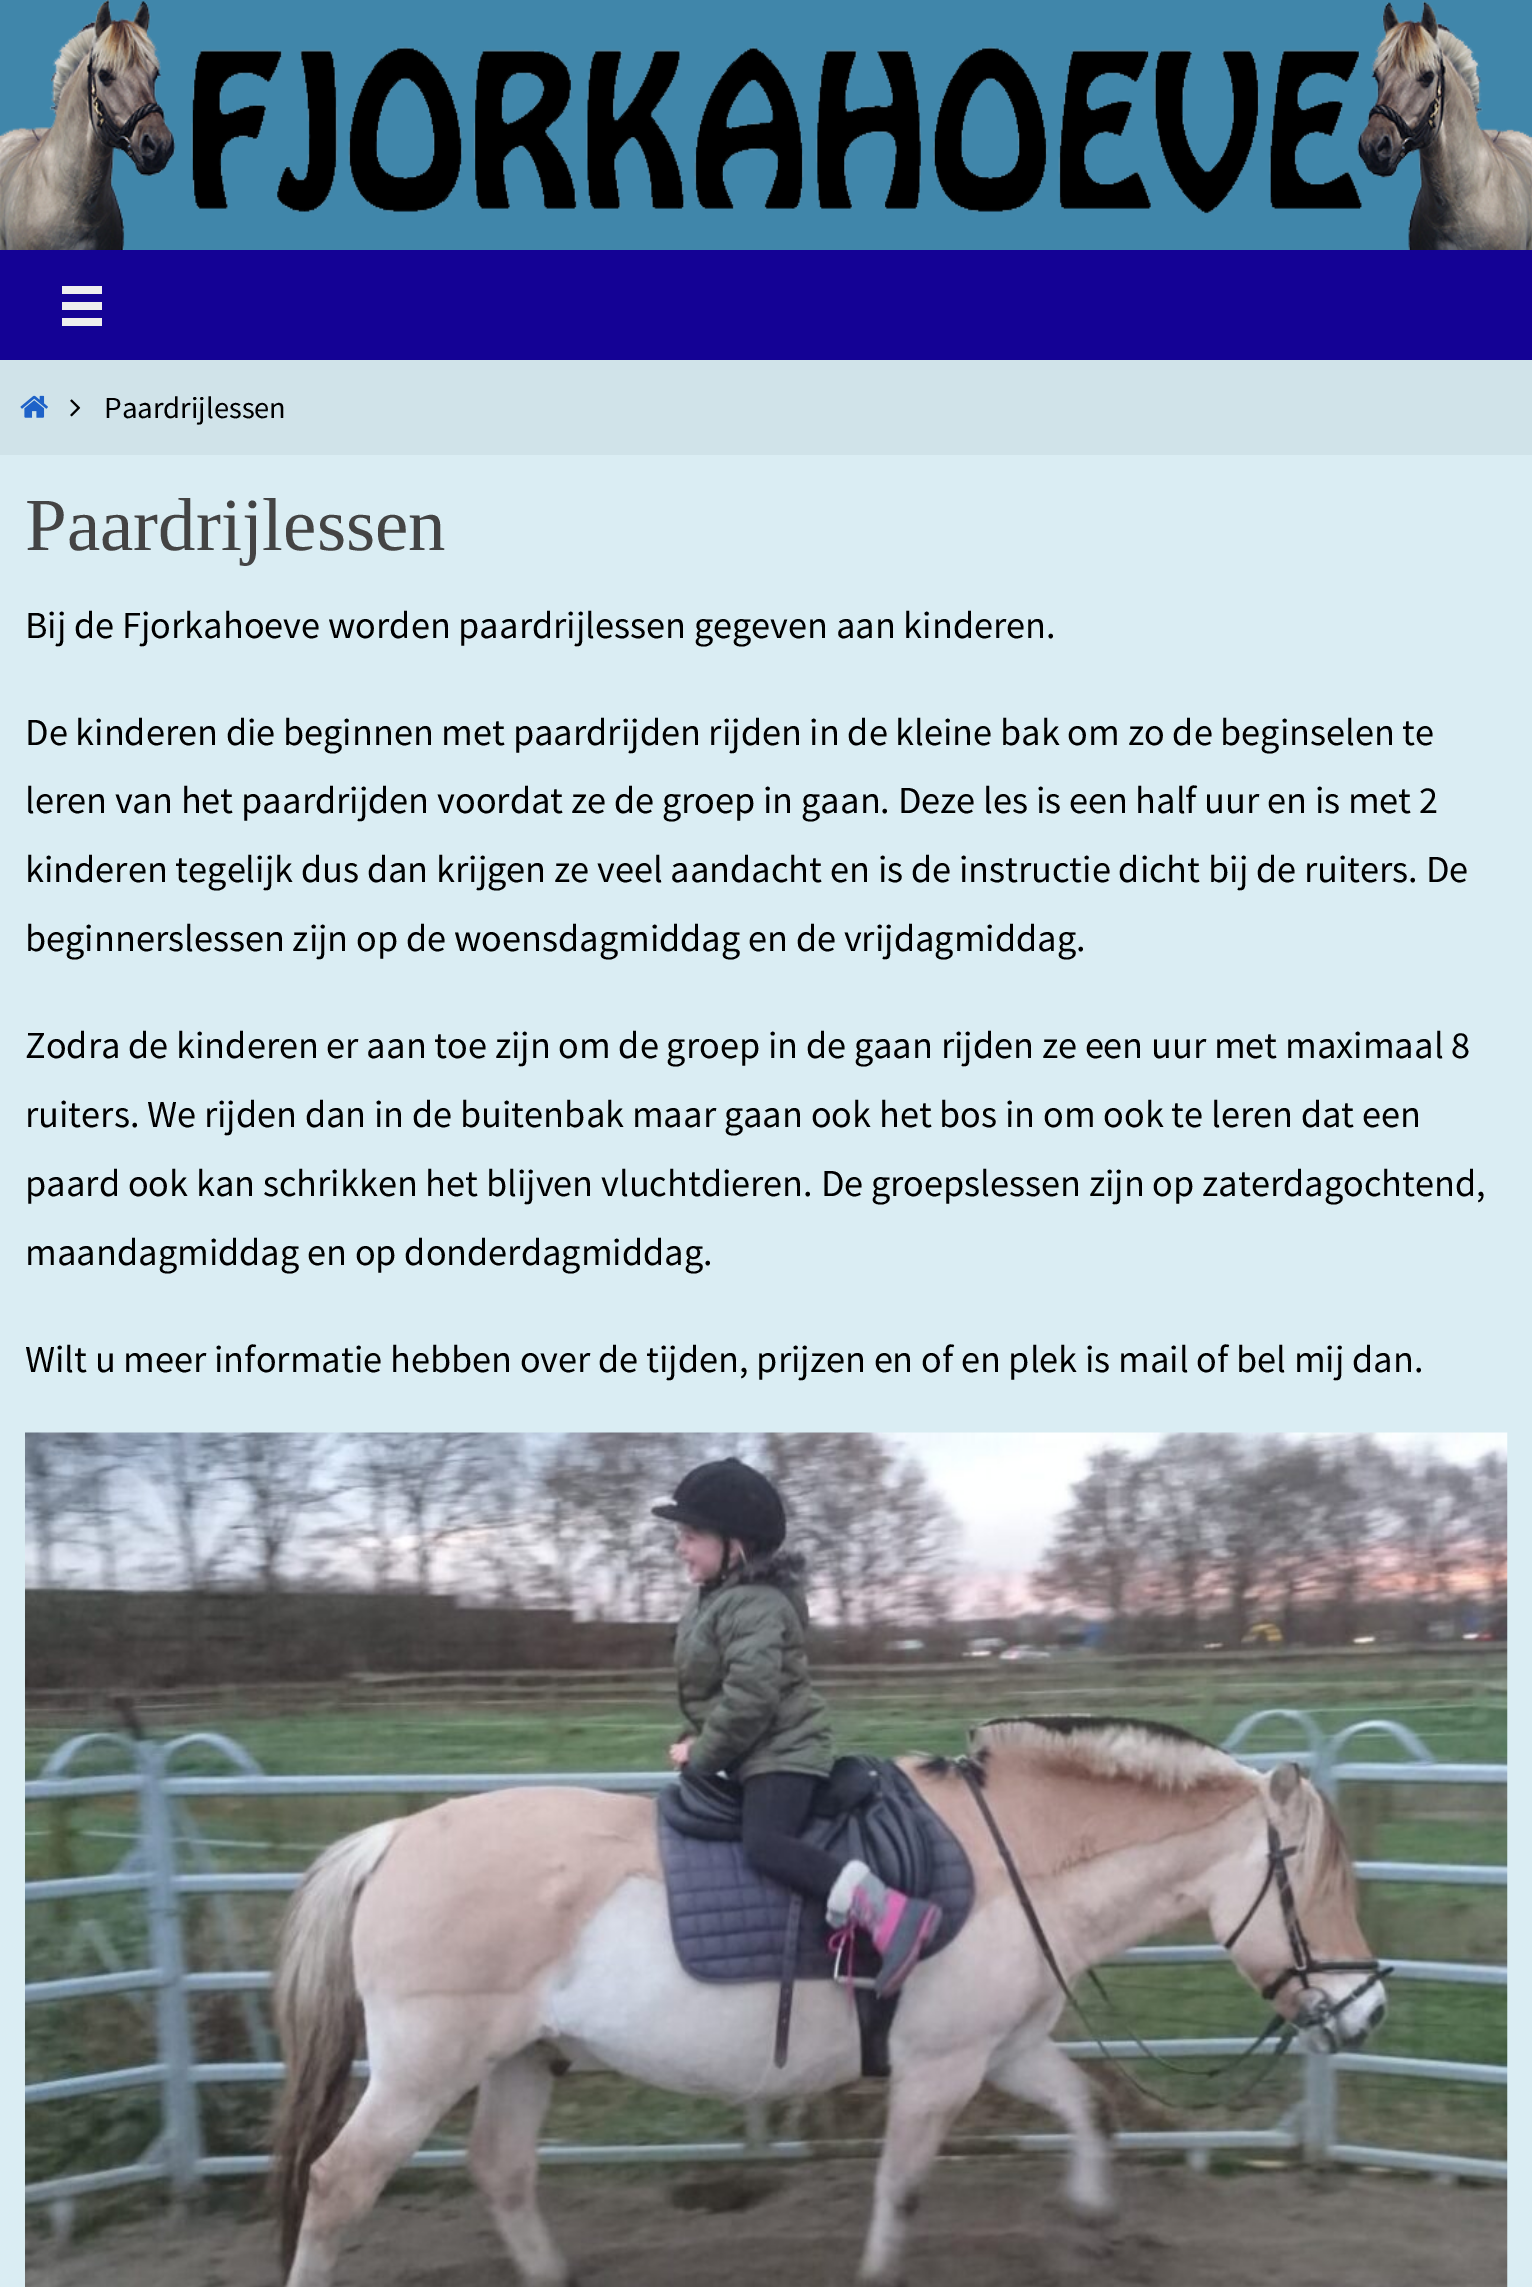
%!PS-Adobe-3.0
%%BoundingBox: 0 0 1532 2287
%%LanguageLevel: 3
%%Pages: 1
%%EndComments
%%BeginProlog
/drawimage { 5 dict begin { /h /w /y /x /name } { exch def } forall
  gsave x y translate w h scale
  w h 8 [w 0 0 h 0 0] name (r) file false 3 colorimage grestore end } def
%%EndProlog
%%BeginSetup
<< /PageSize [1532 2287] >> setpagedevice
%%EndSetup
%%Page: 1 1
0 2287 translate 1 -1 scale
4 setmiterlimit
0.251 0.525 0.667 setrgbcolor
0 0 1532 2287 rectfill
(images/1.raw) 0 0 1532 250 drawimage
0.078 0.008 0.584 setrgbcolor
0 250 1532 110 rectfill
0.933 setgray
newpath 62 286 moveto 62 294 lineto 102 294 lineto 102 286 lineto closepath 62 302 moveto 62 310 lineto 102 310 lineto 102 302 lineto closepath 62 318 moveto 62 326 lineto 102 326 lineto 102 318 lineto closepath fill
0.816 0.89 0.914 setrgbcolor
0 360 1532 95 rectfill
(images/2.raw) 20 395 28 23 drawimage
(images/3.raw) 70 399 11 18 drawimage
0.855 0.929 0.953 setrgbcolor
0 455 1532 1832 rectfill
(images/4.raw) 25 1432 1483 855 drawimage
/SourceSansPro-Regular [30.5 0 0 -30.5 0 0] selectfont
0 setgray
104 418 moveto (Paardrijlessen) show
/LiberationSerif-Regular [75 0 0 -75 0 0] selectfont
0.267 setgray
25 550 moveto (Paardrijlessen) show
/SourceSansPro-Regular [38.25 0 0 -38.25 0 0] selectfont
0 setgray
25 638 moveto (Bij de Fjorkahoeve worden paardrijlessen gegeven aan kinderen.) show
25 745 moveto (De kinderen die beginnen met paardrijden rijden in de kleine bak om zo de beginselen te) show
25 813 moveto (leren van het paardrijden voordat ze de groep in gaan. Deze les is een half uur en is met 2) show
25 882 moveto (kinderen tegelijk dus dan krijgen ze veel aandacht en is de instructie dicht bij de ruiters. De) show
25 951 moveto (beginnerslessen zijn op de woensdagmiddag en de vrijdagmiddag.) show
25 1058 moveto (Zodra de kinderen er aan toe zijn om de groep in de gaan rijden ze een uur met maximaal 8) show
25 1127 moveto (ruiters. We rijden dan in de buitenbak maar gaan ook het bos in om ook te leren dat een) show
25 1196 moveto (paard ook kan schrikken het blijven vluchtdieren. De groepslessen zijn op zaterdagochtend,) show
25 1265 moveto (maandagmiddag en op donderdagmiddag.) show
25 1372 moveto (Wilt u meer informatie hebben over de tijden, prijzen en of en plek is mail of bel mij dan.) show
showpage
%%EOF
